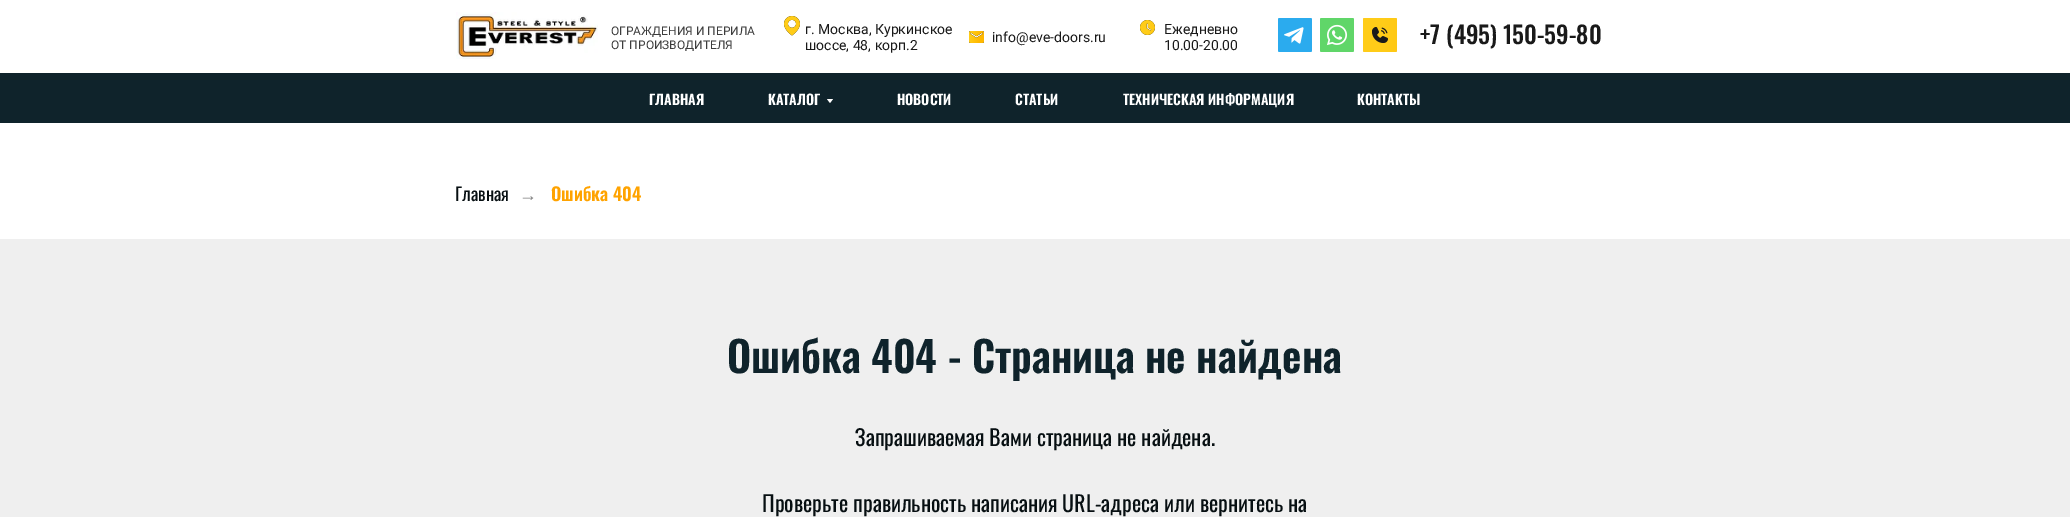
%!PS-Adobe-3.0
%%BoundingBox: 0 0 2070 517
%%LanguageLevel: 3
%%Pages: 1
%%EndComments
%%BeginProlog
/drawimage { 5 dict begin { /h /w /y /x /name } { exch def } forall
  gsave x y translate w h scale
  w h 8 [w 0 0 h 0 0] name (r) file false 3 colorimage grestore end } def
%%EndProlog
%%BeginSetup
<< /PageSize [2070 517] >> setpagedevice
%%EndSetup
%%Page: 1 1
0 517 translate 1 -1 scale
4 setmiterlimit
1 setgray
0 0 2070 517 rectfill
(images/1.raw) 456 12 142 47 drawimage
(images/2.raw) 784 16 16 20 drawimage
(images/3.raw) 969 31 15 12 drawimage
(images/4.raw) 1140 20 15 15 drawimage
(images/5.raw) 1278 18 34 34 drawimage
(images/6.raw) 1320 18 34 34 drawimage
(images/7.raw) 1363 18 34 34 drawimage
0.059 0.137 0.169 setrgbcolor
0 73 2070 50 rectfill
1 setgray
newpath 827 99 moveto 833 99 lineto 830 103 lineto closepath fill
0.937 setgray
0 239 2070 278 rectfill
/Roboto-Regular [12 0 0 -12 0 0] selectfont
0.239 setgray
611 35 moveto (ОГРАЖДЕНИЯ И ПЕРИЛА) show
611 49 moveto (ОТ ПРОИЗВОДИТЕЛЯ) show
/Roboto-Regular [14 0 0 -14 0 0] selectfont
0.098 setgray
805 34 moveto (г. Москва, Куркинское) show
805 50 moveto (шоссе, 48, корп.2) show
992 42 moveto (info@eve-doors.ru) show
1164 34 moveto (Ежедневно) show
1164 50 moveto (10.00-20.00) show
/Oswald-Medium [24 0 0 -24 0 0] selectfont
1420 44 moveto (+7 \(495\) 150-59-80) show
/Oswald-SemiBold [14 0 0 -14 0 0] selectfont
1 setgray
649 105 moveto (ГЛАВНАЯ) show
768 105 moveto (КАТАЛОГ) show
897 105 moveto (НОВОСТИ) show
1015 105 moveto (СТАТЬИ) show
1123 105 moveto (ТЕХНИЧЕСКАЯ ИНФОРМАЦИЯ) show
1357 105 moveto (КОНТАКТЫ) show
/Oswald-Regular [18 0 0 -18 0 0] selectfont
0.027 0.059 0.071 setrgbcolor
455 201 moveto (Главная) show
/LiberationSerif-Regular [18 0 0 -18 0 0] selectfont
0.522 setgray
519 201 moveto (→) show
/Oswald-SemiBold [18 0 0 -18 0 0] selectfont
1 0.639 0 setrgbcolor
551 201 moveto (Ошибка 404) show
/Oswald-SemiBold [42 0 0 -42 0 0] selectfont
0.059 0.137 0.169 setrgbcolor
727 373 moveto (Ошибка 404 - Страница не найдена) show
/Oswald-Regular [22 0 0 -22 0 0] selectfont
0.027 0.059 0.071 setrgbcolor
855 446 moveto (Запрашиваемая Вами страница не найдена.) show
762 512 moveto (Проверьте правильность написания URL-адреса или вернитесь на) show
showpage
%%EOF
